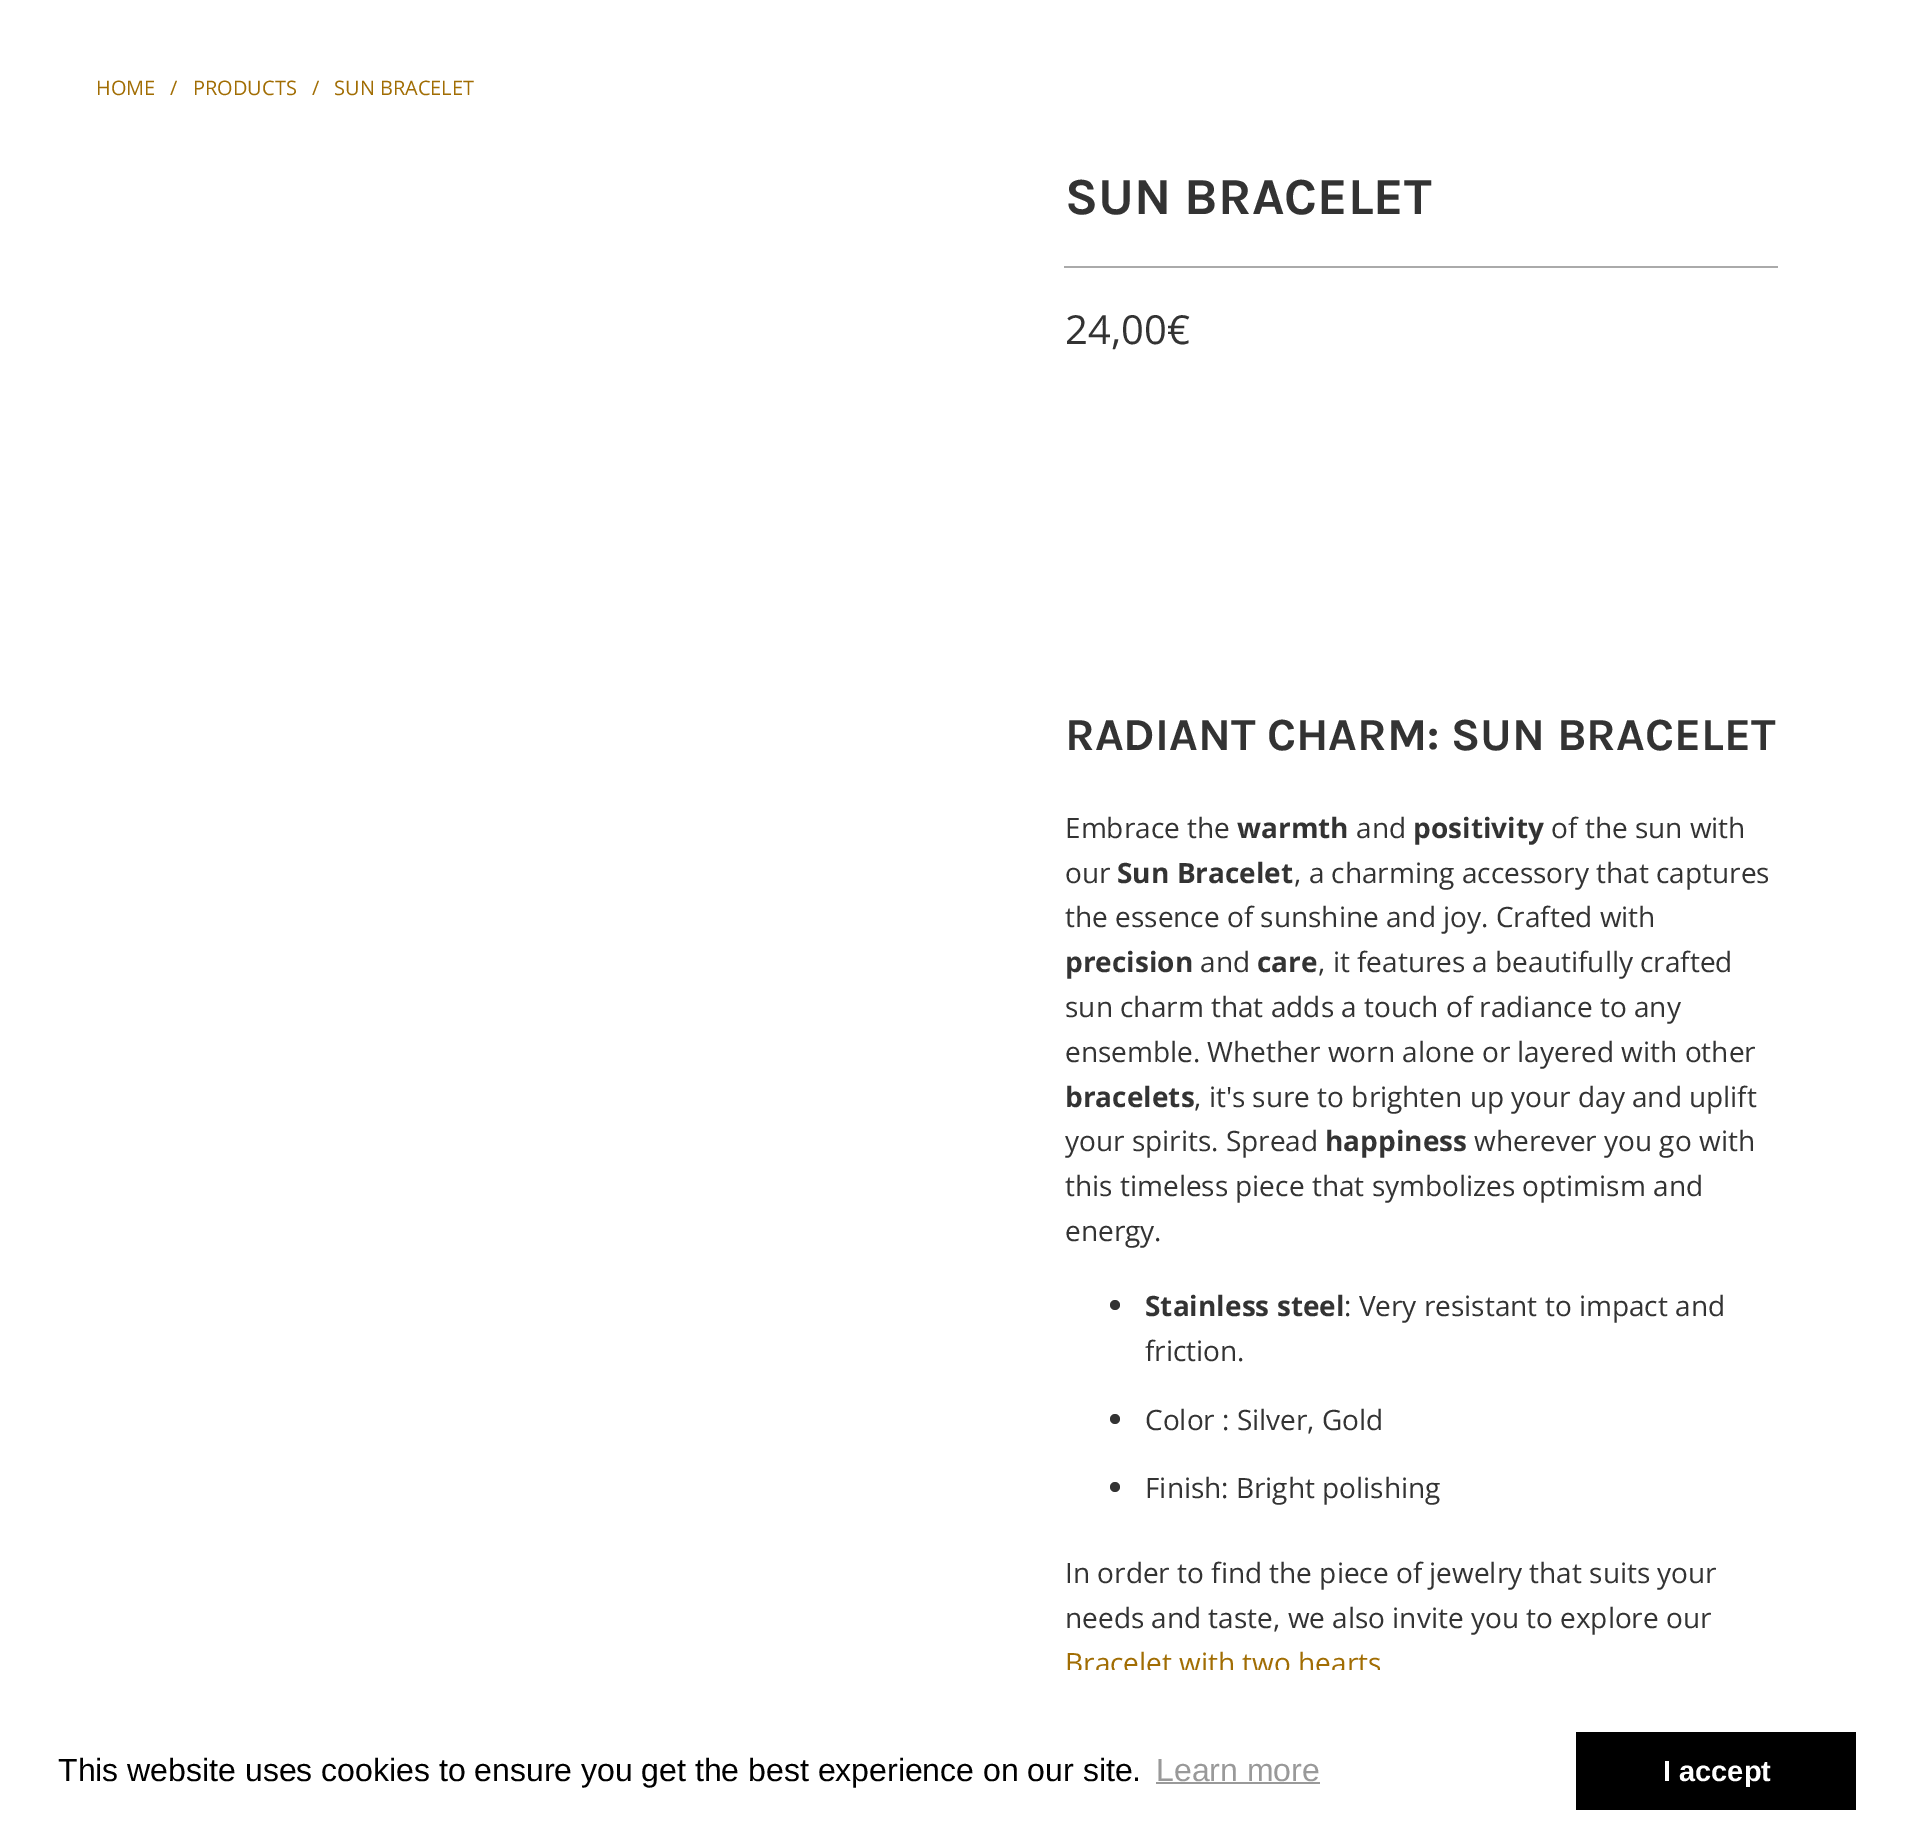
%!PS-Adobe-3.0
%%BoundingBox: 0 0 1914 1841
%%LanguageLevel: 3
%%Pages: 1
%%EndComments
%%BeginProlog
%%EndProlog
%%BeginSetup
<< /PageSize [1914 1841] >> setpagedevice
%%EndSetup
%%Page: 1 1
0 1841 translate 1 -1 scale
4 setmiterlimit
1 setgray
0 0 1914 1841 rectfill
0.667 setgray
1064 266 714 2 rectfill
0.2 setgray
newpath 1115 1305 5 0 360 arc closepath fill
newpath 1115 1419 5 0 360 arc closepath fill
newpath 1115 1487 5 0 360 arc closepath fill
0.6 setgray
1156 1782 164 2 rectfill
0 setgray
1576 1732 280 78 rectfill
/OpenSans-Regular [20 0 0 -20 0 0] selectfont
0.631 0.427 0.012 setrgbcolor
96 95 moveto (HOME) show
170 95 moveto (/) show
193 95 moveto (PRODUCTS) show
312 95 moveto (/) show
334 95 moveto (SUN BRACELET) show
/Karla-Bold [52 0 0 -52 0 0] selectfont
0.2 setgray
1065 214 moveto (SUN BRACELET) show
/OpenSans-Regular [40 0 0 -40 0 0] selectfont
1065 344 moveto (24,00€) show
/Karla-Bold [46 0 0 -46 0 0] selectfont
1065 750 moveto (RADIANT CHARM: SUN BRACELET) show
/OpenSans-Regular [28 0 0 -28 0 0] selectfont
1065 838 moveto (Embrace the) show
/OpenSans-Bold [28 0 0 -28 0 0] selectfont
1237 838 moveto (warmth) show
/OpenSans-Regular [28 0 0 -28 0 0] selectfont
1356 838 moveto (and) show
/OpenSans-Bold [28 0 0 -28 0 0] selectfont
1413 838 moveto (positivity) show
/OpenSans-Regular [28 0 0 -28 0 0] selectfont
1551 838 moveto (of the sun with) show
1065 883 moveto (our) show
/OpenSans-Bold [28 0 0 -28 0 0] selectfont
1117 883 moveto (Sun Bracelet) show
/OpenSans-Regular [28 0 0 -28 0 0] selectfont
1294 883 moveto (, a charming accessory that captures) show
1065 927 moveto (the essence of sunshine and joy. Crafted with) show
/OpenSans-Bold [28 0 0 -28 0 0] selectfont
1065 972 moveto (precision) show
/OpenSans-Regular [28 0 0 -28 0 0] selectfont
1200 972 moveto (and) show
/OpenSans-Bold [28 0 0 -28 0 0] selectfont
1257 972 moveto (care) show
/OpenSans-Regular [28 0 0 -28 0 0] selectfont
1318 972 moveto (, it features a beautifully crafted) show
1065 1017 moveto (sun charm that adds a touch of radiance to any) show
1065 1062 moveto (ensemble. Whether worn alone or layered with other) show
/OpenSans-Bold [28 0 0 -28 0 0] selectfont
1065 1107 moveto (bracelets) show
/OpenSans-Regular [28 0 0 -28 0 0] selectfont
1194 1107 moveto (, it's sure to brighten up your day and uplift) show
1065 1151 moveto (your spirits. Spread) show
/OpenSans-Bold [28 0 0 -28 0 0] selectfont
1325 1151 moveto (happiness) show
/OpenSans-Regular [28 0 0 -28 0 0] selectfont
1474 1151 moveto (wherever you go with) show
1065 1196 moveto (this timeless piece that symbolizes optimism and) show
1065 1241 moveto (energy.) show
/OpenSans-Bold [28 0 0 -28 0 0] selectfont
1145 1316 moveto (Stainless steel) show
/OpenSans-Regular [28 0 0 -28 0 0] selectfont
1344 1316 moveto (: Very resistant to impact and) show
1145 1361 moveto (friction.) show
1145 1430 moveto (Color : Silver, Gold) show
1145 1498 moveto (Finish: Bright polishing) show
1065 1583 moveto (In order to find the piece of jewelry that suits your) show
1065 1628 moveto (needs and taste, we also invite you to explore our) show
0.631 0.427 0.012 setrgbcolor
1065 1673 moveto (Bracelet with two hearts) show
1 setgray
1067 1670 313 4 rectfill
/LiberationSans-Regular [32 0 0 -32 0 0] selectfont
0 setgray
58 1781 moveto (This website uses cookies to ensure you get the best experience on our site.) show
0.6 setgray
1156 1781 moveto (Learn more) show
/LiberationSans-Bold [29 0 0 -29 0 0] selectfont
1 setgray
1663 1781 moveto (I accept) show
showpage
%%EOF
